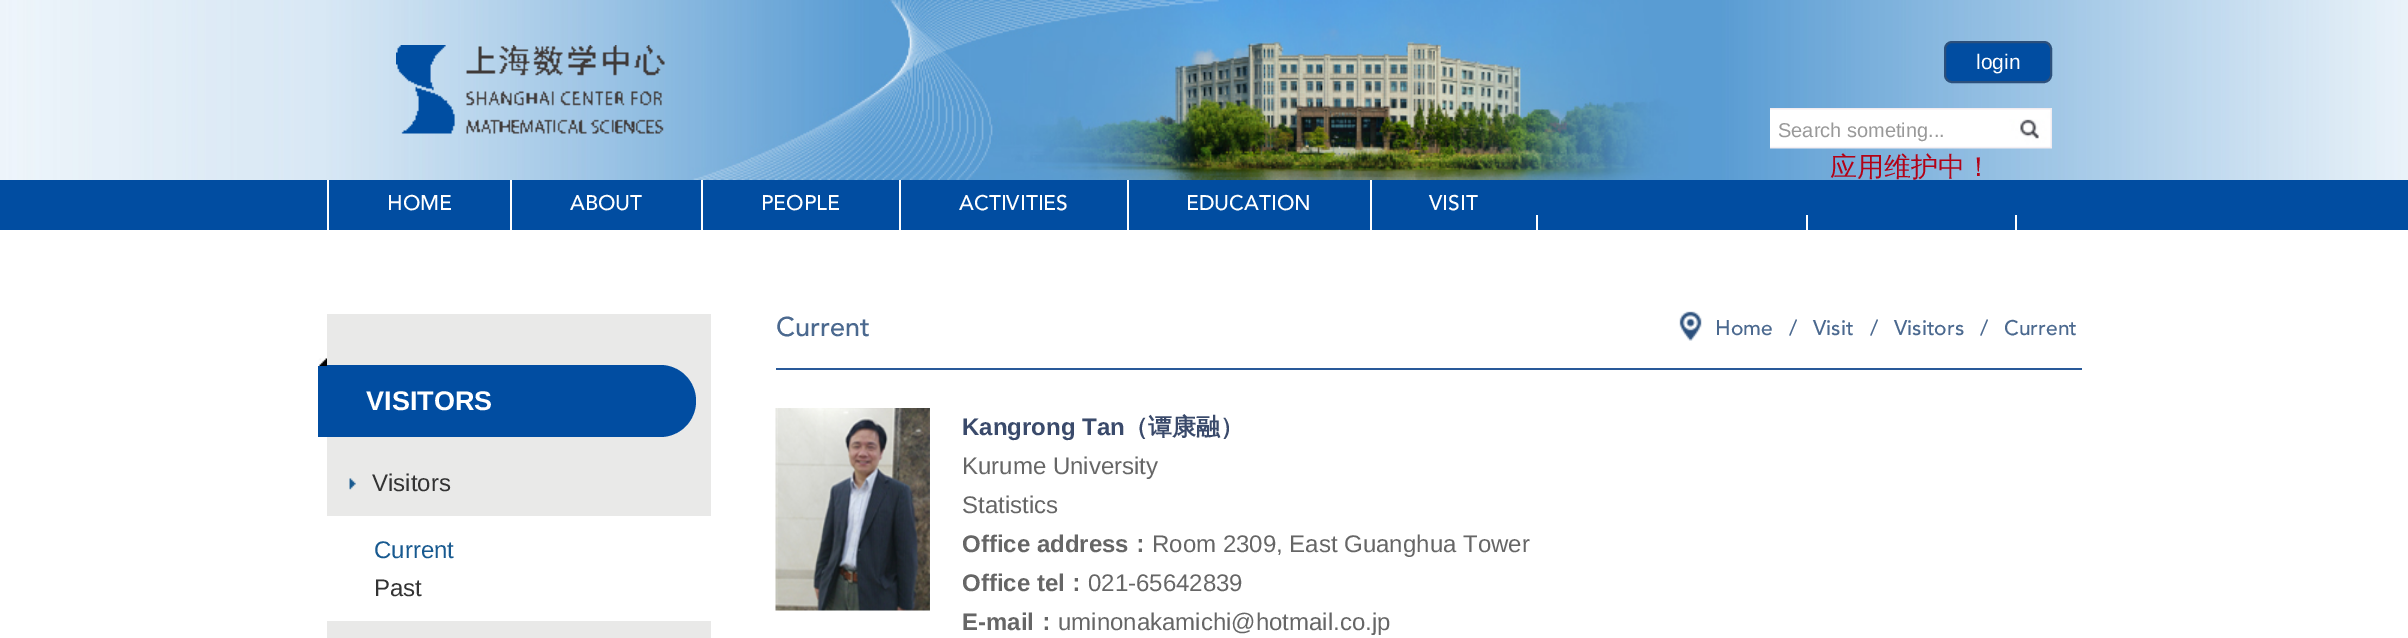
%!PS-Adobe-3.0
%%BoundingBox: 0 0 2408 638
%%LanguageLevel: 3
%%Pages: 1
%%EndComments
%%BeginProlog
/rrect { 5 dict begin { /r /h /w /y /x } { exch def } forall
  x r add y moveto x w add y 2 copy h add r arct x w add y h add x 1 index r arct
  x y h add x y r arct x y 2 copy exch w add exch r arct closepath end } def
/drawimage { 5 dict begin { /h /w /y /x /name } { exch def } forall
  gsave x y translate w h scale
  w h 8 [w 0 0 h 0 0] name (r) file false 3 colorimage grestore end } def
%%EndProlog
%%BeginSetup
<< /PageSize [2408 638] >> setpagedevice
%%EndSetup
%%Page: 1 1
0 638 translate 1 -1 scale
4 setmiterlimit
1 setgray
0 0 2408 638 rectfill
(images/1.raw) 0 0 2408 180 drawimage
(images/2.raw) 396 45 269 89 drawimage
0.004 0.302 0.631 setrgbcolor
1945 42 106 40 7 rrect gsave fill grestore
0.173 0.314 0.486 setrgbcolor
2 setlinewidth
stroke
(images/3.raw) 1770 108 282 41 drawimage
0.004 0.302 0.631 setrgbcolor
0 180 2408 50 rectfill
1 setgray
327 180 2 50 rectfill
510 180 2 50 rectfill
701 180 2 50 rectfill
899 180 2 50 rectfill
1127 180 2 50 rectfill
1370 180 2 50 rectfill
1536 215 2 15 rectfill
2015 215 2 15 rectfill
1806 215 2 15 rectfill
0.914 0.914 0.91 setrgbcolor
327 314 384 324 rectfill
0.004 0.302 0.631 setrgbcolor
newpath 318 365 moveto 660 365 lineto 680 365 696 381 696 401 curveto 696 421 680 437 660 437 curveto 318 437 lineto closepath fill
(images/4.raw) 318 358 9 8 drawimage
(images/5.raw) 349 478 7 12 drawimage
1 setgray
327 516 384 105 rectfill
0.161 0.349 0.6 setrgbcolor
776 368 1306 2 rectfill
(images/6.raw) 1679 311 23 30 drawimage
(images/7.raw) 775 408 155 203 drawimage
/LiberationSans-Regular [21 0 0 -21 0 0] selectfont
1 setgray
1976 69 moveto (login) show
/LiberationSans-Regular [20 0 0 -20 0 0] selectfont
0.6 setgray
1778 137 moveto (Search someting...) show
/WenQuanYiZenHei-Medium [27 0 0 -27 0 0] selectfont
0.702 0.008 0.086 setrgbcolor
1830 176 moveto (应用维护中！) show
/Avenir-Medium [21 0 0 -21 0 0] selectfont
1 setgray
387 210 moveto (HOME) show
570 210 moveto (ABOUT) show
761 210 moveto (PEOPLE) show
959 210 moveto (ACTIVITIES) show
1186 210 moveto (EDUCATION) show
1429 210 moveto (VISIT) show
/LiberationSans-Bold [27 0 0 -27 0 0] selectfont
366 410 moveto (VISITORS) show
/LiberationSans-Regular [24 0 0 -24 0 0] selectfont
0.2 setgray
372 491 moveto (Visitors) show
0.094 0.353 0.565 setrgbcolor
374 558 moveto (Current) show
0.2 setgray
374 596 moveto (Past) show
/Avenir-Medium [27 0 0 -27 0 0] selectfont
0.294 0.412 0.561 setrgbcolor
776 336 moveto (Current) show
/Avenir-Medium [21 0 0 -21 0 0] selectfont
1715 335 moveto (Home) show
1789 335 moveto (/) show
1813 335 moveto (Visit) show
1870 335 moveto (/) show
1894 335 moveto (Visitors) show
1980 335 moveto (/) show
2004 335 moveto (Current) show
/LiberationSans-Bold [24 0 0 -24 0 0] selectfont
0.227 0.29 0.42 setrgbcolor
962 435 moveto (Kangrong Tan) show
/WenQuanYiZenHei-Bold [24 0 0 -24 0 0] selectfont
1124 435 moveto (（谭康融）) show
/LiberationSans-Regular [24 0 0 -24 0 0] selectfont
0.4 setgray
962 474 moveto (Kurume University) show
962 513 moveto (Statistics) show
/LiberationSans-Bold [24 0 0 -24 0 0] selectfont
962 552 moveto (Office address) show
/WenQuanYiZenHei-Bold [24 0 0 -24 0 0] selectfont
1128 552 moveto (：) show
/LiberationSans-Regular [24 0 0 -24 0 0] selectfont
1152 552 moveto (Room 2309, East Guanghua Tower) show
/LiberationSans-Bold [24 0 0 -24 0 0] selectfont
962 591 moveto (Office tel) show
/WenQuanYiZenHei-Bold [24 0 0 -24 0 0] selectfont
1064 591 moveto (：) show
/LiberationSans-Regular [24 0 0 -24 0 0] selectfont
1088 591 moveto (021-65642839) show
/LiberationSans-Bold [24 0 0 -24 0 0] selectfont
962 630 moveto (E-mail) show
/WenQuanYiZenHei-Bold [24 0 0 -24 0 0] selectfont
1034 630 moveto (：) show
/LiberationSans-Regular [24 0 0 -24 0 0] selectfont
1058 630 moveto (uminonakamichi@hotmail.co.jp) show
showpage
%%EOF
